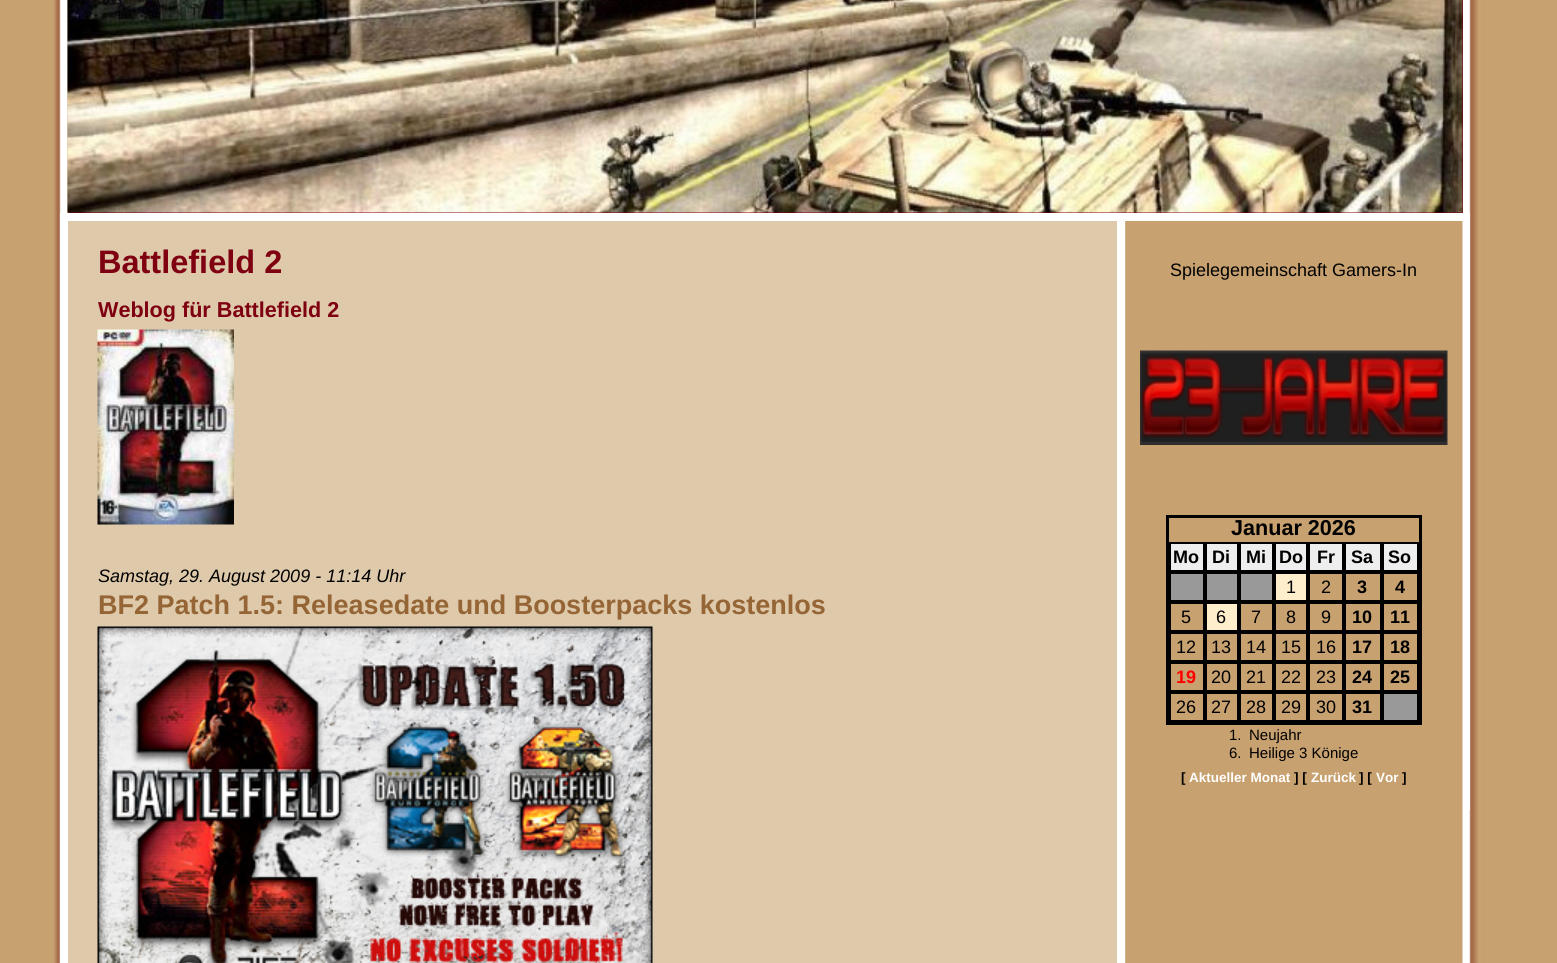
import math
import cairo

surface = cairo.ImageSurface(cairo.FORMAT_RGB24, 1557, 963)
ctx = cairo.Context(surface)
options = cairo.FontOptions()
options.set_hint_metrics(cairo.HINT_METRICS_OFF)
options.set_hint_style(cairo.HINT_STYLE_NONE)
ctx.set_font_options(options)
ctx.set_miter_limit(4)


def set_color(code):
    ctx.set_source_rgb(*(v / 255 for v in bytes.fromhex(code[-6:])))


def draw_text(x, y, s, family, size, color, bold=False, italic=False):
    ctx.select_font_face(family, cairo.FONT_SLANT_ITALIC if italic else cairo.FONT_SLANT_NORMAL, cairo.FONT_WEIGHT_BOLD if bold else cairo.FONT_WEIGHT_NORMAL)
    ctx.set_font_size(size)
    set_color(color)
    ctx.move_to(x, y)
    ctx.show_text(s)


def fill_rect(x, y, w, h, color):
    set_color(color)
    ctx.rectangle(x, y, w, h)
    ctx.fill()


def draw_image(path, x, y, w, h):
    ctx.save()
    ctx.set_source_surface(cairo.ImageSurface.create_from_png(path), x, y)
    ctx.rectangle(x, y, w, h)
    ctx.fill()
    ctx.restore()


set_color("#ffffff")
ctx.paint()
draw_image("assets/img1.png", 0, 0, 1557, 963)
fill_rect(68, 0, 1395, 213, "#7e0011")
draw_image("assets/img2.png", 67, 0, 1396, 213)
set_color("#dec9aa")
ctx.rectangle(64, 217, 1057, 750)
ctx.fill_preserve()
set_color("#ffffff")
ctx.set_line_width(8)
ctx.stroke()
draw_text(98, 273, "Battlefield 2", "Liberation Sans", 32.5, "#7e0011", bold=True)
draw_text(98, 317, "Weblog für Battlefield 2", "Liberation Sans", 21.6, "#7e0011", bold=True)
draw_image("assets/img3.png", 97, 329, 137, 196)
draw_text(98, 582, "Samstag, 29. August 2009 - 11:14 Uhr", "Liberation Sans", 18, "#000000", italic=True)
draw_text(98, 614, "BF2 Patch 1.5: Releasedate und Boosterpacks kostenlos", "Liberation Sans", 27, "#956535", bold=True)
draw_image("assets/img4.png", 97, 626, 556, 337)
fill_rect(1125, 213, 345, 8, "#ffffff")
fill_rect(1469, 213, 1, 597, "#ffffff")
draw_text(1170, 276, "Spielegemeinschaft Gamers-In", "Liberation Sans", 18, "#000000")
draw_image("assets/img5.png", 1140, 350, 308, 95)
ctx.rectangle(1167.5, 516.5, 253, 207)
ctx.set_line_width(3)
ctx.stroke()
draw_text(1231, 535, "Januar 2026", "Liberation Sans", 21.6, "#000000", bold=True)
fill_rect(1171, 544, 246, 26, "#eeeeee")
ctx.rectangle(1170, 543, 34, 28)
set_color("#000000")
ctx.set_line_width(2)
ctx.stroke()
draw_text(1173, 563, "Mo", "Liberation Sans", 18, "#000000", bold=True)
ctx.rectangle(1206, 543, 32, 28)
ctx.stroke()
draw_text(1212, 563, "Di", "Liberation Sans", 18, "#000000", bold=True)
ctx.rectangle(1240, 543, 33, 28)
ctx.stroke()
draw_text(1246, 563, "Mi", "Liberation Sans", 18, "#000000", bold=True)
ctx.rectangle(1275, 543, 32, 28)
ctx.stroke()
draw_text(1279, 563, "Do", "Liberation Sans", 18, "#000000", bold=True)
ctx.rectangle(1309, 543, 34, 28)
ctx.stroke()
draw_text(1317, 563, "Fr", "Liberation Sans", 18, "#000000", bold=True)
ctx.rectangle(1345, 543, 36, 28)
ctx.stroke()
draw_text(1351, 563, "Sa", "Liberation Sans", 18, "#000000", bold=True)
ctx.rectangle(1383, 543, 35, 28)
ctx.stroke()
draw_text(1388, 563, "So", "Liberation Sans", 18, "#000000", bold=True)
set_color("#999999")
ctx.rectangle(1170, 573, 34, 28)
ctx.fill_preserve()
set_color("#000000")
ctx.stroke()
set_color("#999999")
ctx.rectangle(1206, 573, 32, 28)
ctx.fill_preserve()
set_color("#000000")
ctx.stroke()
set_color("#999999")
ctx.rectangle(1240, 573, 33, 28)
ctx.fill_preserve()
set_color("#000000")
ctx.stroke()
set_color("#ffeecc")
ctx.rectangle(1275, 573, 32, 28)
ctx.fill_preserve()
set_color("#000000")
ctx.stroke()
draw_text(1286, 593, "1", "Liberation Sans", 18, "#000000")
ctx.rectangle(1309, 573, 34, 28)
ctx.stroke()
draw_text(1321, 593, "2", "Liberation Sans", 18, "#000000")
ctx.rectangle(1345, 573, 36, 28)
ctx.stroke()
draw_text(1357, 593, "3", "Liberation Sans", 18, "#000000", bold=True)
ctx.rectangle(1383, 573, 35, 28)
ctx.stroke()
draw_text(1395, 593, "4", "Liberation Sans", 18, "#000000", bold=True)
ctx.rectangle(1170, 603, 34, 28)
ctx.stroke()
draw_text(1181, 623, "5", "Liberation Sans", 18, "#000000")
set_color("#ffeecc")
ctx.rectangle(1206, 603, 32, 28)
ctx.fill_preserve()
set_color("#000000")
ctx.stroke()
draw_text(1216, 623, "6", "Liberation Sans", 18, "#000000")
ctx.rectangle(1240, 603, 33, 28)
ctx.stroke()
draw_text(1251, 623, "7", "Liberation Sans", 18, "#000000")
ctx.rectangle(1275, 603, 32, 28)
ctx.stroke()
draw_text(1286, 623, "8", "Liberation Sans", 18, "#000000")
ctx.rectangle(1309, 603, 34, 28)
ctx.stroke()
draw_text(1321, 623, "9", "Liberation Sans", 18, "#000000")
ctx.rectangle(1345, 603, 36, 28)
ctx.stroke()
draw_text(1352, 623, "10", "Liberation Sans", 18, "#000000", bold=True)
ctx.rectangle(1383, 603, 35, 28)
ctx.stroke()
draw_text(1390, 623, "11", "Liberation Sans", 18, "#000000", bold=True)
ctx.rectangle(1170, 633, 34, 28)
ctx.stroke()
draw_text(1176, 653, "12", "Liberation Sans", 18, "#000000")
ctx.rectangle(1206, 633, 32, 28)
ctx.stroke()
draw_text(1211, 653, "13", "Liberation Sans", 18, "#000000")
ctx.rectangle(1240, 633, 33, 28)
ctx.stroke()
draw_text(1246, 653, "14", "Liberation Sans", 18, "#000000")
ctx.rectangle(1275, 633, 32, 28)
ctx.stroke()
draw_text(1281, 653, "15", "Liberation Sans", 18, "#000000")
ctx.rectangle(1309, 633, 34, 28)
ctx.stroke()
draw_text(1316, 653, "16", "Liberation Sans", 18, "#000000")
ctx.rectangle(1345, 633, 36, 28)
ctx.stroke()
draw_text(1352, 653, "17", "Liberation Sans", 18, "#000000", bold=True)
ctx.rectangle(1383, 633, 35, 28)
ctx.stroke()
draw_text(1390, 653, "18", "Liberation Sans", 18, "#000000", bold=True)
ctx.rectangle(1170, 663, 34, 28)
ctx.stroke()
draw_text(1176, 683, "19", "Liberation Sans", 18, "#ff0000", bold=True)
ctx.rectangle(1206, 663, 32, 28)
set_color("#000000")
ctx.stroke()
draw_text(1211, 683, "20", "Liberation Sans", 18, "#000000")
ctx.rectangle(1240, 663, 33, 28)
ctx.stroke()
draw_text(1246, 683, "21", "Liberation Sans", 18, "#000000")
ctx.rectangle(1275, 663, 32, 28)
ctx.stroke()
draw_text(1281, 683, "22", "Liberation Sans", 18, "#000000")
ctx.rectangle(1309, 663, 34, 28)
ctx.stroke()
draw_text(1316, 683, "23", "Liberation Sans", 18, "#000000")
ctx.rectangle(1345, 663, 36, 28)
ctx.stroke()
draw_text(1352, 683, "24", "Liberation Sans", 18, "#000000", bold=True)
ctx.rectangle(1383, 663, 35, 28)
ctx.stroke()
draw_text(1390, 683, "25", "Liberation Sans", 18, "#000000", bold=True)
ctx.rectangle(1170, 693, 34, 28)
ctx.stroke()
draw_text(1176, 713, "26", "Liberation Sans", 18, "#000000")
ctx.rectangle(1206, 693, 32, 28)
ctx.stroke()
draw_text(1211, 713, "27", "Liberation Sans", 18, "#000000")
ctx.rectangle(1240, 693, 33, 28)
ctx.stroke()
draw_text(1246, 713, "28", "Liberation Sans", 18, "#000000")
ctx.rectangle(1275, 693, 32, 28)
ctx.stroke()
draw_text(1281, 713, "29", "Liberation Sans", 18, "#000000")
ctx.rectangle(1309, 693, 34, 28)
ctx.stroke()
draw_text(1316, 713, "30", "Liberation Sans", 18, "#000000")
ctx.rectangle(1345, 693, 36, 28)
ctx.stroke()
draw_text(1352, 713, "31", "Liberation Sans", 18, "#000000", bold=True)
set_color("#999999")
ctx.rectangle(1383, 693, 35, 28)
ctx.fill_preserve()
set_color("#000000")
ctx.stroke()
draw_text(1229, 740, "1.", "Liberation Sans", 15, "#000000")
draw_text(1249, 740, "Neujahr", "Liberation Sans", 15, "#000000")
draw_text(1229, 758, "6.", "Liberation Sans", 15, "#000000")
draw_text(1249, 758, "Heilige 3 Könige", "Liberation Sans", 15, "#000000")
draw_text(1181, 782, "[", "Liberation Sans", 13.5, "#000000", bold=True)
draw_text(1189, 782, "Aktueller Monat", "Liberation Sans", 13.5, "#ffffff", bold=True)
draw_text(1294, 782, "] [", "Liberation Sans", 13.5, "#000000", bold=True)
draw_text(1311, 782, "Zurück", "Liberation Sans", 13.5, "#ffffff", bold=True)
draw_text(1359, 782, "] [", "Liberation Sans", 13.5, "#000000", bold=True)
draw_text(1376, 782, "Vor", "Liberation Sans", 13.5, "#ffffff", bold=True)
draw_text(1402, 782, "]", "Liberation Sans", 13.5, "#000000", bold=True)
surface.write_to_png("output.png")
